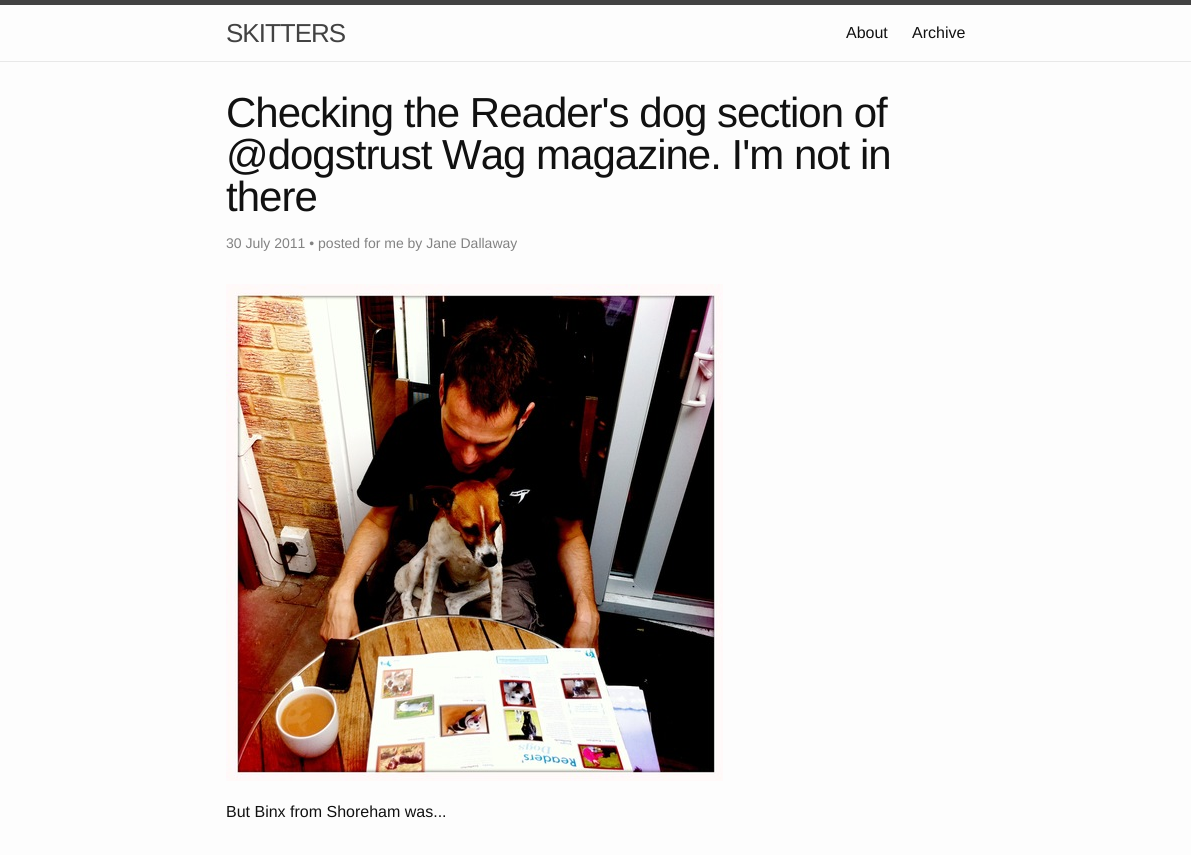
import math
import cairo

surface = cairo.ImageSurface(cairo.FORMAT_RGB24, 1191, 855)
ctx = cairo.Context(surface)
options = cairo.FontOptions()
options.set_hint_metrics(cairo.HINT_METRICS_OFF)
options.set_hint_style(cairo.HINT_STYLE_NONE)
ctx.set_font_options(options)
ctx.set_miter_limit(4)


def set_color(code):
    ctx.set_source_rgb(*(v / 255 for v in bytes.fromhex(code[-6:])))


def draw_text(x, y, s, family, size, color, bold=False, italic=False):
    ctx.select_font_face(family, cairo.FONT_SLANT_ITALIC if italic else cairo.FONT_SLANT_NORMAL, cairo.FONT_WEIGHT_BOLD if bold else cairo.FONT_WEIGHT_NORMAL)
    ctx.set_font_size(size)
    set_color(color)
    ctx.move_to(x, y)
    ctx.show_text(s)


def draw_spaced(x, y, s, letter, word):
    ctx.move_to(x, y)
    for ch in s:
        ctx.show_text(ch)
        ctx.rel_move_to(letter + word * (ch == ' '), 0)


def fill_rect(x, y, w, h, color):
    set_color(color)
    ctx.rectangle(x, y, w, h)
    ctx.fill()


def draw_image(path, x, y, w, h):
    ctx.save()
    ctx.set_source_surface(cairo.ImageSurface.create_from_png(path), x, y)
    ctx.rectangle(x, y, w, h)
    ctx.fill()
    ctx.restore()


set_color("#fdfdfd")
ctx.paint()
fill_rect(0, 0, 1191, 5, "#424242")
fill_rect(0, 61, 1191, 1, "#e8e8e8")
ctx.select_font_face("Liberation Sans")
ctx.set_font_size(26)
set_color("#424242")
draw_spaced(226, 42, "SKITTERS", -1, 0)
draw_text(846, 38, "About", "Liberation Sans", 16, "#111111")
draw_text(912, 38, "Archive", "Liberation Sans", 16, "#111111")
ctx.set_font_size(42)
draw_spaced(226, 127, "Checking the Reader's dog section of", -1, 0)
draw_spaced(226, 169, "@dogstrust Wag magazine. I'm not in", -1, 0)
draw_spaced(226, 211, "there", -1, 0)
draw_text(226, 248, "30 July 2011 • posted for me by Jane Dallaway", "Liberation Sans", 14, "#828282")
draw_image("assets/img1.png", 226, 284, 497, 497)
draw_text(226, 817, "But Binx from Shoreham was...", "Liberation Sans", 16, "#111111")
surface.write_to_png("output.png")
